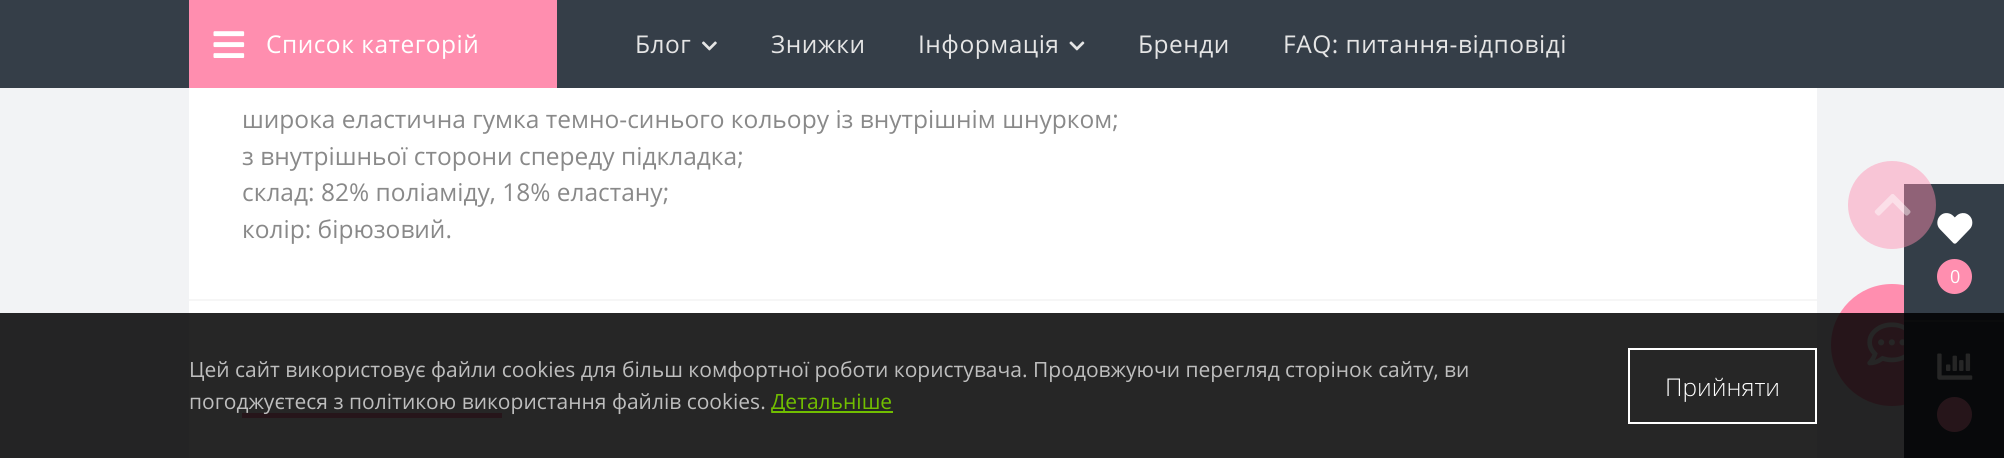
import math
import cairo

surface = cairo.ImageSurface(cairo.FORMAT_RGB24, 2004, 458)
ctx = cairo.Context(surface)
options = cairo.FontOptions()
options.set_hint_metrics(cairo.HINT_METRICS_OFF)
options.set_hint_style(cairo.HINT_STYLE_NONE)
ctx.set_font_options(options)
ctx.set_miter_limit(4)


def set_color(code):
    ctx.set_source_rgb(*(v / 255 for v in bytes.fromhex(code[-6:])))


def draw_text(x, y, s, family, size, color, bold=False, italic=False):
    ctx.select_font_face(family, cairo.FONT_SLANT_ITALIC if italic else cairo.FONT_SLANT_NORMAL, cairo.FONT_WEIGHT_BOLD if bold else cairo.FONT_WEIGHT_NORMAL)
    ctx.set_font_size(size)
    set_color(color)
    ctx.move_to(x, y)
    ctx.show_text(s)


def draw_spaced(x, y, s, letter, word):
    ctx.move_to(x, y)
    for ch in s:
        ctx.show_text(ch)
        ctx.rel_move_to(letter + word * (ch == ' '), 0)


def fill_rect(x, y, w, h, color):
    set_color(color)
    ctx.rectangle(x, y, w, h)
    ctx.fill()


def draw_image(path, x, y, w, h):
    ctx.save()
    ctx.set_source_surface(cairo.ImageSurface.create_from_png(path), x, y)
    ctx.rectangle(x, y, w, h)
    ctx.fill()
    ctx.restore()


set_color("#f2f3f5")
ctx.paint()
fill_rect(0, 0, 2004, 88, "#353e48")
fill_rect(189, 0, 368, 88, "#ff8eaf")
draw_image("assets/img1.png", 213, 31, 32, 27)
ctx.select_font_face("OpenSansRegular")
ctx.set_font_size(24.5)
set_color("#ffffff")
draw_spaced(266, 53, "Список категорій", 0.5, 0)
set_color("#e5e5e5")
draw_spaced(635, 53, "Блог", 0.5, 0)
draw_image("assets/img2.png", 702, 41, 15, 10)
draw_spaced(771, 53, "Знижки", 0.5, 0)
draw_spaced(918, 53, "Інформація", 0.5, 0)
draw_image("assets/img3.png", 1069, 41, 16, 10)
draw_spaced(1138, 53, "Бренди", 0.5, 0)
draw_spaced(1283, 53, "FAQ: питання-відповіді", 0.5, 0)
fill_rect(189, 88, 1628, 370, "#ffffff")
draw_text(242, 128, "широка еластична гумка темно-синього кольору із внутрішнім шнурком;", "OpenSansRegular", 24.5, "#898989")
draw_text(242, 165, "з внутрішньої сторони спереду підкладка;", "OpenSansRegular", 24.5, "#898989")
draw_text(242, 201, "склад: 82% поліаміду, 18% еластану;", "OpenSansRegular", 24.5, "#898989")
draw_text(242, 238, "колір: бірюзовий.", "OpenSansRegular", 24.5, "#898989")
fill_rect(189, 299, 1628, 2, "#f6f6f6")
fill_rect(242, 413, 260, 5, "#ff8eaf")
ctx.new_path()
ctx.arc(1892, 345, 61, 0, 2 * math.pi)
ctx.fill()
fill_rect(1904, 184, 100, 274, "#343e48")
ctx.set_source_rgba(1, 0.557, 0.686, 0.45)
ctx.arc(1892, 205, 44, 0, 2 * math.pi)
ctx.fill()
draw_image("assets/img4.png", 1874, 194, 37, 22)
draw_image("assets/img5.png", 1867, 322, 37, 44)
draw_image("assets/img6.png", 1937, 213, 36, 31)
set_color("#ff8eaf")
ctx.arc(1954.5, 276.5, 17.5, 0, 2 * math.pi)
ctx.fill()
draw_text(1950, 283, "0", "OpenSansRegular", 18, "#ffffff")
fill_rect(1904, 320, 100, 2, "#48515a")
draw_image("assets/img7.png", 1937, 353, 36, 27)
set_color("#ff8eaf")
ctx.arc(1954.5, 414.5, 17.5, 0, 2 * math.pi)
ctx.fill()
ctx.set_source_rgba(0, 0, 0, 0.85)
ctx.rectangle(0, 313, 2004, 145)
ctx.fill()
draw_text(189, 377, "Цей сайт використовує файли cookies для більш комфортної роботи користувача. Продовжуючи перегляд сторінок сайту, ви", "OpenSansRegular", 21, "#bebebe")
draw_text(189, 409, "погоджуєтеся з політикою використання файлів cookies.", "OpenSansRegular", 21, "#bebebe")
fill_rect(772, 411, 121, 2, "#71be00")
draw_text(771, 409, "Детальніше", "OpenSansRegular", 21, "#71be00")
ctx.rectangle(1629, 349, 187, 74)
set_color("#ffffff")
ctx.stroke()
draw_text(1665, 396, "Прийняти", "Open Sans Light", 24.5, "#ffffff")
surface.write_to_png("output.png")
